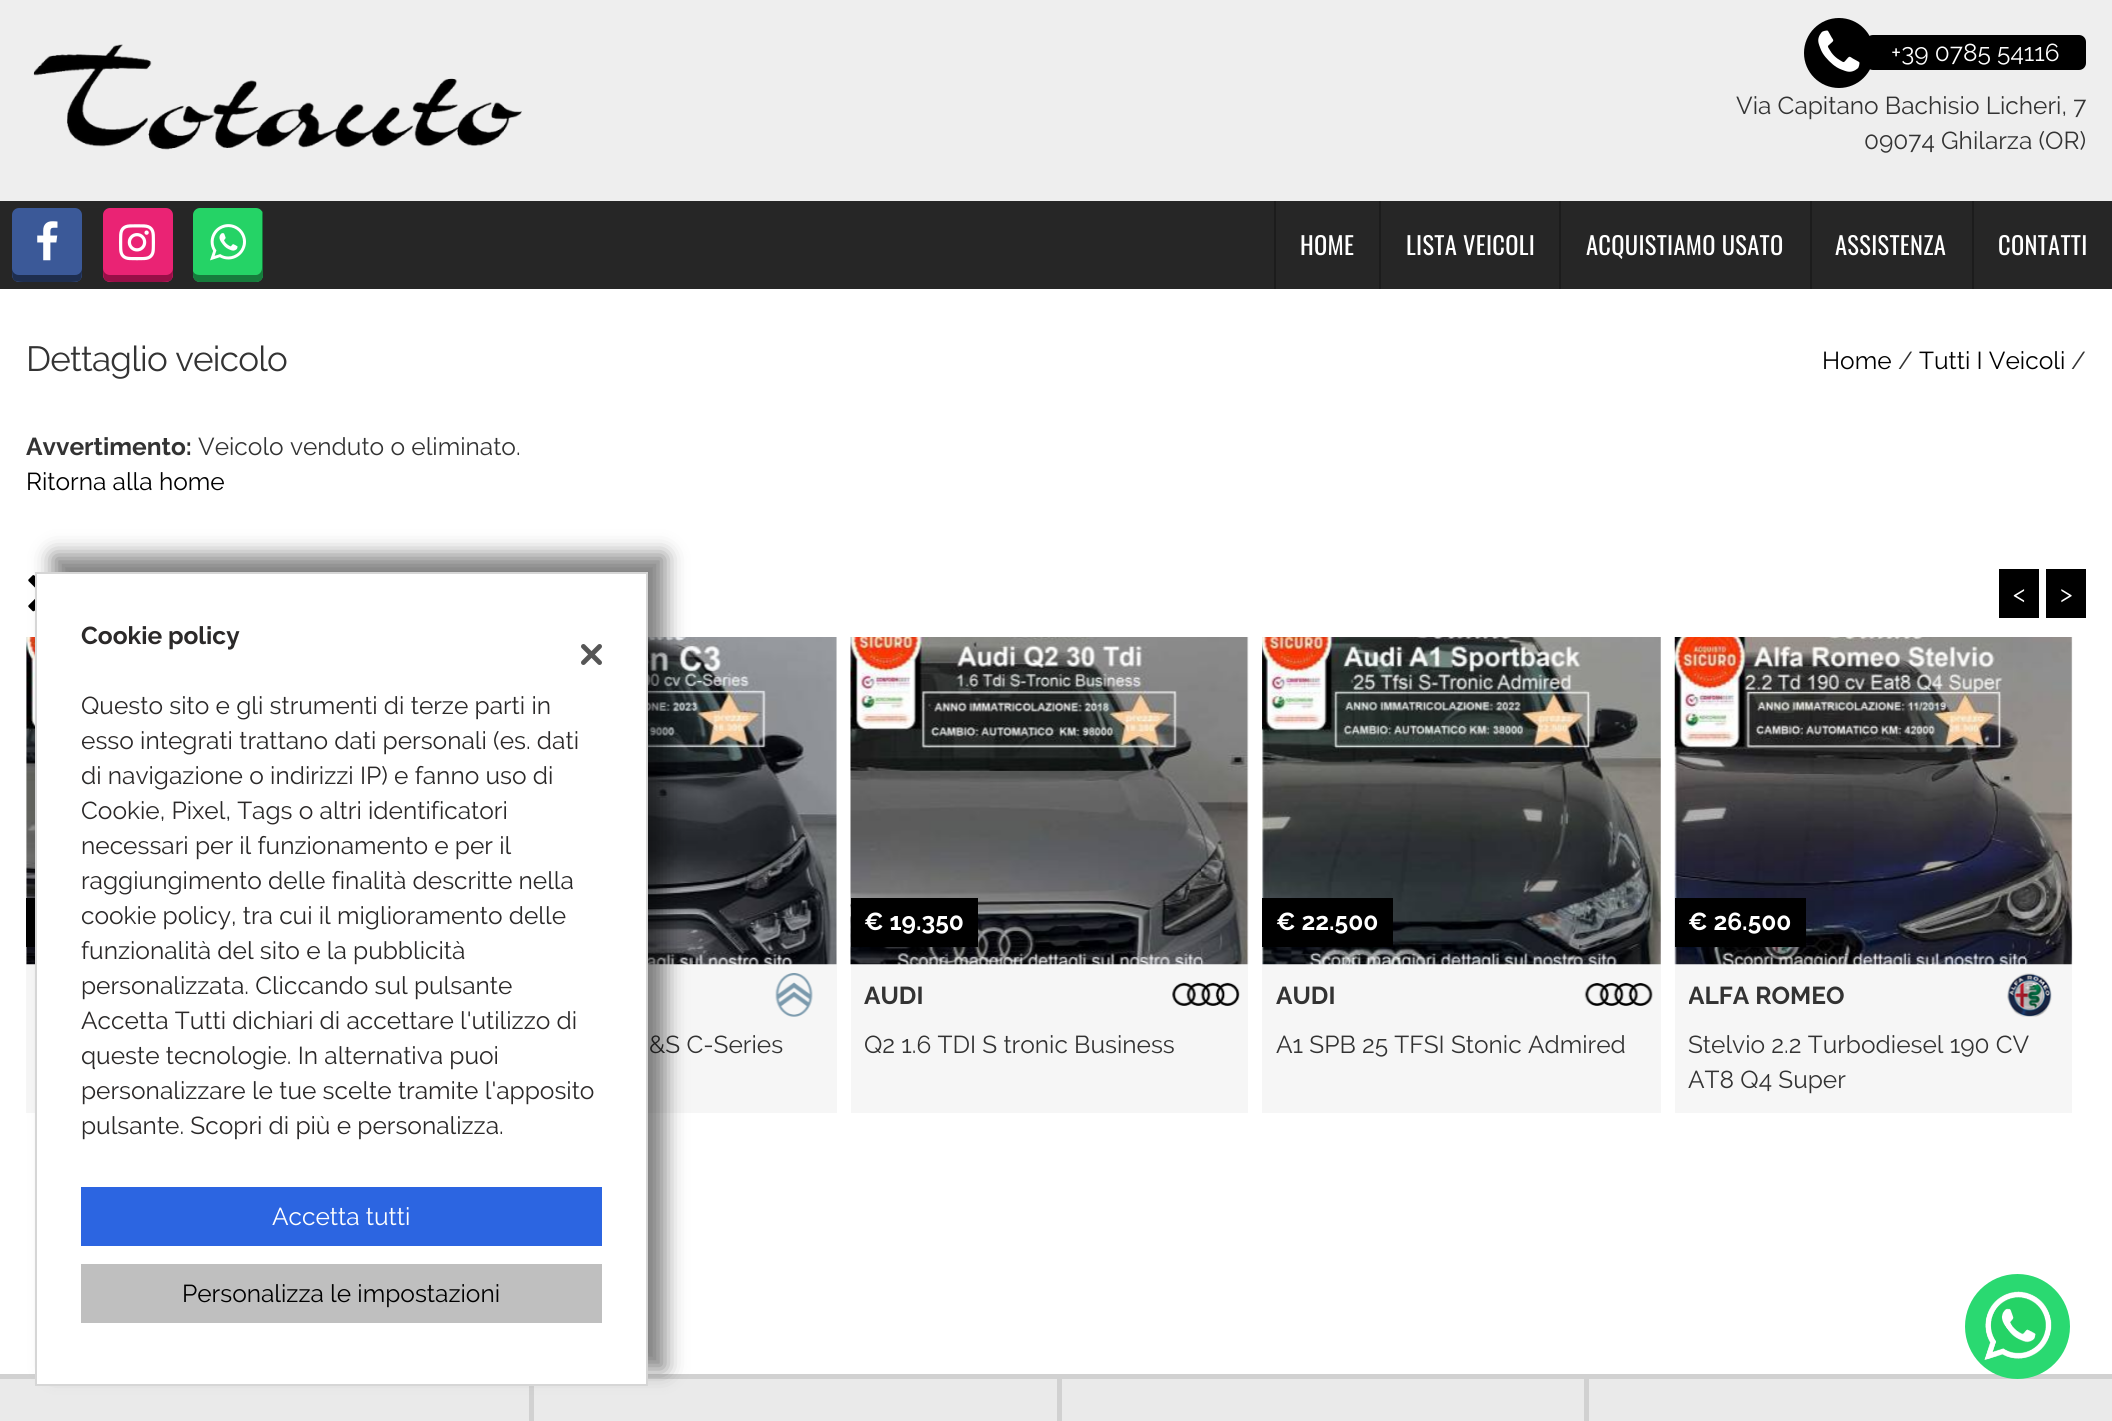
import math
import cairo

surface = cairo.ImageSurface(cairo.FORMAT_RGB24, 2112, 1421)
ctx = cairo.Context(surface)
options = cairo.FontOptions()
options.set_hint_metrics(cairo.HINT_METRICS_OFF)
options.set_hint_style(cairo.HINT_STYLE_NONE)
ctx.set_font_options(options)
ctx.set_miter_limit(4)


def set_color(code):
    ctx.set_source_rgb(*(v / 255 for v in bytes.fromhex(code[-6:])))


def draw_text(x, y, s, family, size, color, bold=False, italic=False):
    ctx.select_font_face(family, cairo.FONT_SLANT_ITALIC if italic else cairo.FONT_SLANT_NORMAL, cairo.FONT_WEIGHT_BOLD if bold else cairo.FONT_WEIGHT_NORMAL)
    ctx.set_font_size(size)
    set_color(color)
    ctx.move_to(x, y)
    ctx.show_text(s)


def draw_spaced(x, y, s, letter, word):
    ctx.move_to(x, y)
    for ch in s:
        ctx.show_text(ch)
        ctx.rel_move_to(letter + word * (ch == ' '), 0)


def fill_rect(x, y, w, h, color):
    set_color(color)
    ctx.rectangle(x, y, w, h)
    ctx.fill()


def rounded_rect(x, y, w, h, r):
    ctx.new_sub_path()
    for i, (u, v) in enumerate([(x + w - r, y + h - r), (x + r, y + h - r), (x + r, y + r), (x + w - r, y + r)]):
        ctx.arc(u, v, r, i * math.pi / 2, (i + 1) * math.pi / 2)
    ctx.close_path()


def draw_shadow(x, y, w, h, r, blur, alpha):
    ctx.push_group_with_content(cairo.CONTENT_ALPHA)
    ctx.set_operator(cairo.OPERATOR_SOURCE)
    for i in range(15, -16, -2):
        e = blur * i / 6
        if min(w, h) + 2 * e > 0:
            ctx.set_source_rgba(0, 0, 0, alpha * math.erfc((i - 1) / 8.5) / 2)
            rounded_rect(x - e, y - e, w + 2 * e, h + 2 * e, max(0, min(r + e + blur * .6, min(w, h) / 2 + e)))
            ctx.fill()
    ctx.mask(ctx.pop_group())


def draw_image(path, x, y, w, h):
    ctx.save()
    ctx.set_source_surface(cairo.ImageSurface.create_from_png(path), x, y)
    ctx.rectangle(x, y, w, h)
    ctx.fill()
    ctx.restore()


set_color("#ffffff")
ctx.paint()
fill_rect(0, 0, 2112, 201, "#eeeeee")
draw_image("assets/img1.png", 33, 44, 489, 106)
set_color("#000000")
ctx.arc(1839, 53, 35, 0, 2 * math.pi)
ctx.fill()
draw_image("assets/img2.png", 1818, 30, 42, 42)
rounded_rect(1866, 35, 220, 35, 7)
ctx.fill()
draw_text(1891, 61, "+39 0785 54116", "Raleway", 24.5, "#ffffff")
draw_text(1736, 114, "Via Capitano Bachisio Licheri, 7", "Raleway", 24.5, "#333333")
draw_text(1864, 149, "09074 Ghilarza (OR)", "Raleway", 24.5, "#333333")
fill_rect(0, 201, 2112, 88, "#262626")
set_color("#3b5998")
rounded_rect(12, 208, 70, 74, 7)
ctx.fill()
set_color("#1e2e4f")
ctx.new_path()
ctx.move_to(12, 268)
ctx.curve_to(12, 282, 13, 282, 28, 282)
ctx.line_to(66, 282)
ctx.curve_to(81, 282, 82, 282, 82, 268)
ctx.curve_to(82, 272, 79, 275, 75, 275)
ctx.line_to(19, 275)
ctx.curve_to(15, 275, 12, 272, 12, 268)
ctx.close_path()
ctx.fill()
draw_image("assets/img3.png", 37, 221, 21, 40)
set_color("#ea2374")
rounded_rect(103, 208, 70, 74, 7)
ctx.fill()
set_color("#980f47")
ctx.new_path()
ctx.move_to(103, 268)
ctx.curve_to(103, 282, 104, 282, 119, 282)
ctx.line_to(157, 282)
ctx.curve_to(172, 282, 173, 282, 173, 268)
ctx.curve_to(173, 272, 170, 275, 166, 275)
ctx.line_to(110, 275)
ctx.curve_to(106, 275, 103, 272, 103, 268)
ctx.close_path()
ctx.fill()
draw_image("assets/img4.png", 119, 224, 36, 37)
set_color("#25d366")
rounded_rect(193, 208, 70, 74, 7)
ctx.fill()
set_color("#167c3c")
ctx.new_path()
ctx.move_to(193, 271)
ctx.line_to(193, 275)
ctx.curve_to(193, 279, 196, 282, 200, 282)
ctx.line_to(256, 282)
ctx.curve_to(260, 282, 263, 279, 263, 275)
ctx.line_to(263, 215)
ctx.curve_to(263, 214, 263, 212, 262, 211)
ctx.line_to(262, 268)
ctx.curve_to(262, 272, 259, 275, 256, 275)
ctx.line_to(200, 275)
ctx.curve_to(197, 275, 194, 274, 193, 271)
ctx.close_path()
ctx.fill()
draw_image("assets/img5.png", 210, 224, 36, 37)
fill_rect(1274, 201, 2, 88, "#1c1c1c")
ctx.select_font_face("Oswald")
set_color("#ffffff")
draw_spaced(1300, 255, "HOME", 0.3, 0)
fill_rect(1379, 201, 2, 88, "#1c1c1c")
set_color("#ffffff")
draw_spaced(1406, 255, "LISTA VEICOLI", 0.3, 0)
fill_rect(1559, 201, 2, 88, "#1c1c1c")
set_color("#ffffff")
draw_spaced(1586, 255, "ACQUISTIAMO USATO", 0.3, 0)
fill_rect(1810, 201, 2, 88, "#1c1c1c")
set_color("#ffffff")
draw_spaced(1835, 255, "ASSISTENZA", 0.3, 0)
fill_rect(1972, 201, 2, 88, "#1c1c1c")
set_color("#ffffff")
draw_spaced(1998, 255, "CONTATTI", 0.3, 0)
ctx.select_font_face("Raleway")
ctx.set_font_size(35)
set_color("#333333")
draw_spaced(26, 371, "Dettaglio veicolo", -0.75, 0)
draw_text(1822, 369, "Home", "Raleway", 24.5, "#000000")
draw_text(1898, 369, "/", "Raleway", 24.5, "#333333")
draw_text(1919, 369, "Tutti I Veicoli", "Raleway", 24.5, "#000000")
draw_text(2071, 369, "/", "Raleway", 24.5, "#333333")
draw_text(26, 455, "Avvertimento:", "Raleway", 24.5, "#333333", bold=True)
draw_text(198, 455, "Veicolo venduto o eliminato.", "Raleway", 24.5, "#333333")
draw_text(26, 490, "Ritorna alla home", "Raleway", 24.5, "#000000")
draw_image("assets/img6.png", 28, 575, 7, 37)
fill_rect(1999, 569, 40, 49, "#000000")
draw_text(2013, 602, "<", "Raleway", 24.5, "#ffffff")
fill_rect(2046, 569, 40, 49, "#000000")
draw_text(2060, 602, ">", "Raleway", 24.5, "#ffffff")
fill_rect(26, 637, 9, 476, "#f6f6f6")
draw_image("assets/img7.png", 26, 637, 9, 328)
fill_rect(26, 898, 9, 49, "#000000")
fill_rect(648, 637, 189, 476, "#f6f6f6")
draw_image("assets/img8.png", 648, 637, 189, 328)
draw_image("assets/img9.png", 775, 973, 38, 44)
draw_text(649, 1053, "&S C-Series", "Raleway", 24.5, "#333333")
fill_rect(851, 637, 397, 476, "#f6f6f6")
draw_image("assets/img10.png", 850, 637, 399, 328)
fill_rect(851, 898, 127, 49, "#000000")
draw_text(864, 930, "€ 19.350", "Raleway", 24.5, "#ffffff", bold=True)
draw_text(864, 1004, "AUDI", "Raleway", 24.5, "#333333", bold=True)
draw_image("assets/img11.png", 1172, 982, 68, 24)
draw_text(864, 1053, "Q2 1.6 TDI S tronic Business", "Raleway", 24.5, "#333333")
fill_rect(1262, 637, 399, 476, "#f6f6f6")
draw_image("assets/img12.png", 1262, 637, 399, 328)
fill_rect(1262, 898, 131, 49, "#000000")
draw_text(1276, 930, "€ 22.500", "Raleway", 24.5, "#ffffff", bold=True)
draw_text(1276, 1004, "AUDI", "Raleway", 24.5, "#333333", bold=True)
draw_image("assets/img13.png", 1584, 983, 69, 23)
draw_text(1276, 1053, "A1 SPB 25 TFSI Stonic Admired", "Raleway", 24.5, "#333333")
fill_rect(1675, 637, 397, 476, "#f6f6f6")
draw_image("assets/img14.png", 1674, 637, 399, 328)
fill_rect(1675, 898, 131, 49, "#000000")
draw_text(1688, 930, "€ 26.500", "Raleway", 24.5, "#ffffff", bold=True)
ctx.save()
ctx.rectangle(1689, 978, 383, 35)
ctx.clip()
draw_text(1688, 1004, "ALFA ROMEO", "Raleway", 24.5, "#333333", bold=True)
ctx.restore()
draw_image("assets/img15.png", 2007, 973, 45, 44)
draw_text(1688, 1053, "Stelvio 2.2 Turbodiesel 190 CV", "Raleway", 24.5, "#333333")
draw_text(1688, 1088, "AT8 Q4 Super", "Raleway", 24.5, "#333333")
fill_rect(0, 1379, 2112, 42, "#eaeaea")
fill_rect(0, 1374, 2112, 5, "#d1d1d1")
fill_rect(529, 1379, 5, 42, "#d1d1d1")
set_color("#000000")
draw_shadow(53, 555, 612, 814, 0, 10.5, 0.5)
set_color("#ffffff")
ctx.rectangle(36, 573, 611, 812)
ctx.fill_preserve()
set_color("#d6d6d6")
ctx.stroke()
draw_text(81, 644, "Cookie policy", "Raleway", 24.5, "#2b2929", bold=True)
draw_text(81, 714, "Questo sito e gli strumenti di terze parti in", "Raleway", 24.5, "#2b2929")
draw_text(81, 749, "esso integrati trattano dati personali (es. dati", "Raleway", 24.5, "#2b2929")
draw_text(81, 784, "di navigazione o indirizzi IP) e fanno uso di", "Raleway", 24.5, "#2b2929")
draw_text(81, 819, "Cookie, Pixel, Tags o altri identificatori", "Raleway", 24.5, "#2b2929")
draw_text(81, 854, "necessari per il funzionamento e per il", "Raleway", 24.5, "#2b2929")
draw_text(81, 889, "raggiungimento delle finalità descritte nella", "Raleway", 24.5, "#2b2929")
draw_text(81, 924, "cookie policy, tra cui il miglioramento delle", "Raleway", 24.5, "#2b2929")
draw_text(81, 959, "funzionalità del sito e la pubblicità", "Raleway", 24.5, "#2b2929")
draw_text(81, 994, "personalizzata. Cliccando sul pulsante", "Raleway", 24.5, "#2b2929")
draw_text(81, 1029, "Accetta Tutti dichiari di accettare l'utilizzo di", "Raleway", 24.5, "#2b2929")
draw_text(81, 1064, "queste tecnologie. In alternativa puoi", "Raleway", 24.5, "#2b2929")
draw_text(81, 1099, "personalizzare le tue scelte tramite l'apposito", "Raleway", 24.5, "#2b2929")
draw_text(81, 1134, "pulsante. Scopri di più e personalizza.", "Raleway", 24.5, "#2b2929")
draw_image("assets/img16.png", 581, 644, 21, 21)
fill_rect(81, 1187, 521, 59, "#2c65e1")
draw_text(272, 1225, "Accetta tutti", "Raleway", 24.5, "#ffffff")
fill_rect(81, 1264, 521, 59, "#bfbfbf")
draw_text(182, 1302, "Personalizza le impostazioni", "Raleway", 24.5, "#000000")
set_color("#2ad971")
ctx.new_path()
ctx.arc(2017.5, 1326.5, 52.5, 0, 2 * math.pi)
ctx.fill()
draw_image("assets/img17.png", 1984, 1291, 68, 69)
fill_rect(1057, 1379, 5, 42, "#d1d1d1")
fill_rect(1584, 1379, 5, 42, "#d1d1d1")
surface.write_to_png("output.png")
